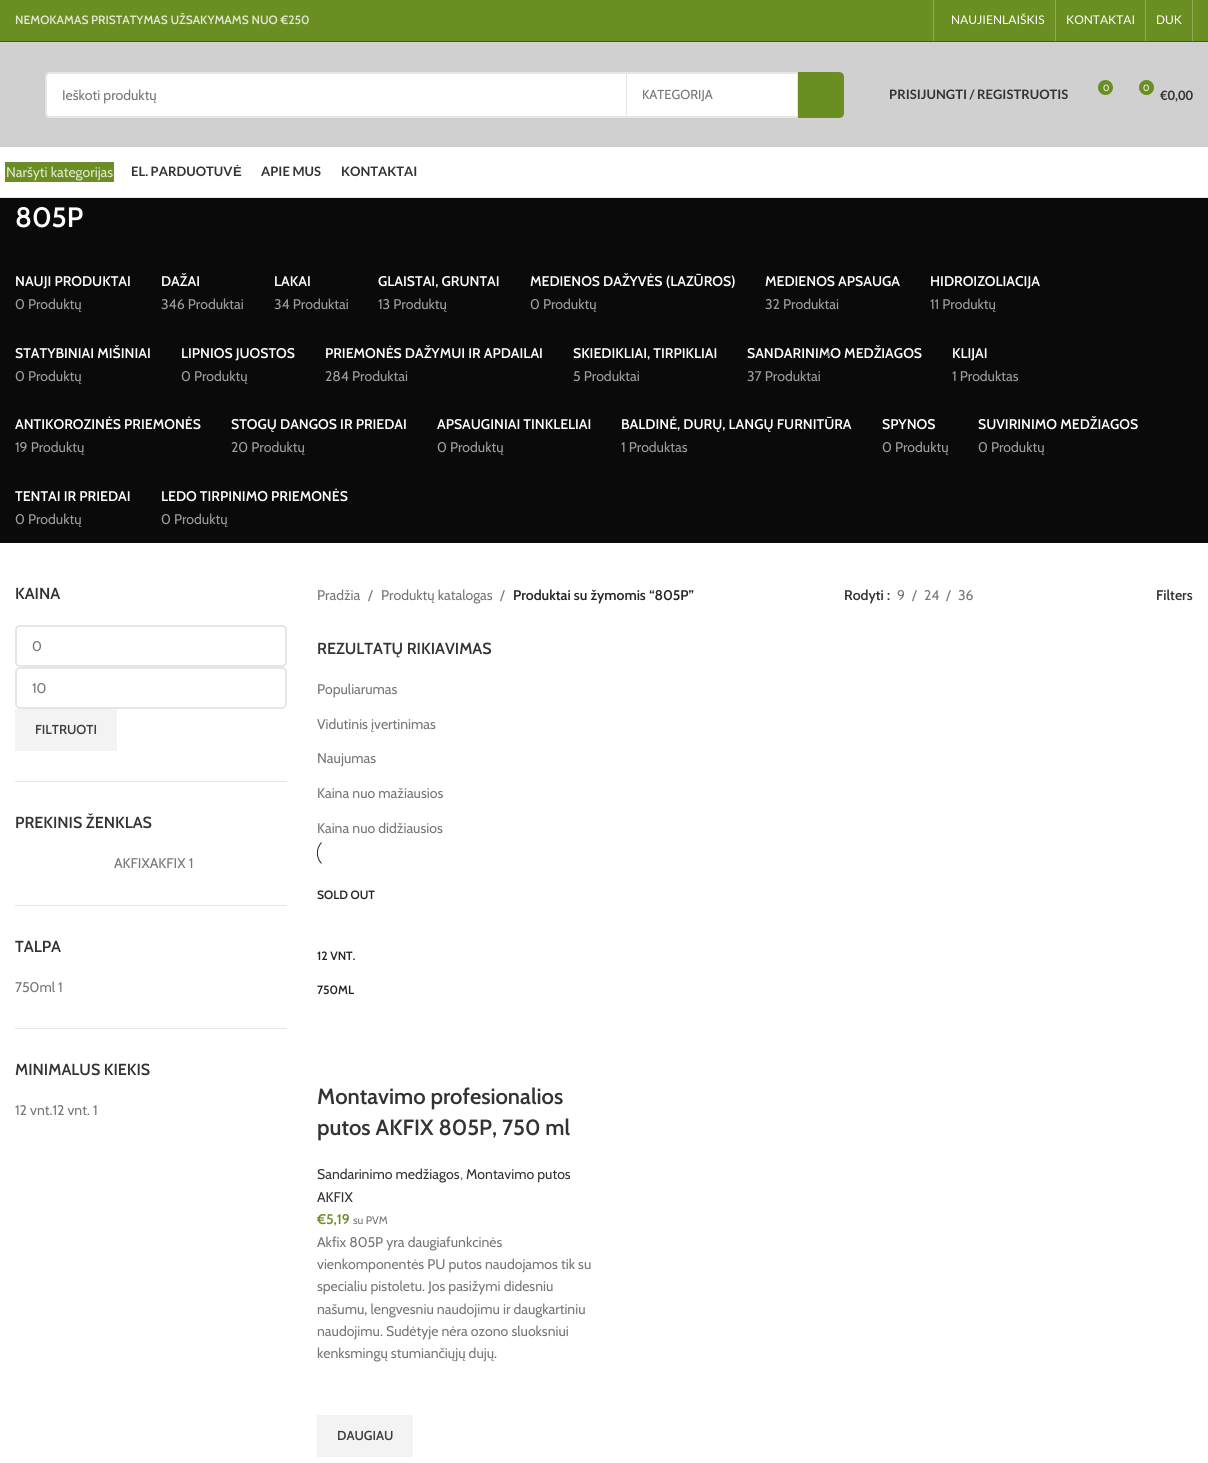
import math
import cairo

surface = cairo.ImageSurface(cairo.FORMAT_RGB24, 1208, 1463)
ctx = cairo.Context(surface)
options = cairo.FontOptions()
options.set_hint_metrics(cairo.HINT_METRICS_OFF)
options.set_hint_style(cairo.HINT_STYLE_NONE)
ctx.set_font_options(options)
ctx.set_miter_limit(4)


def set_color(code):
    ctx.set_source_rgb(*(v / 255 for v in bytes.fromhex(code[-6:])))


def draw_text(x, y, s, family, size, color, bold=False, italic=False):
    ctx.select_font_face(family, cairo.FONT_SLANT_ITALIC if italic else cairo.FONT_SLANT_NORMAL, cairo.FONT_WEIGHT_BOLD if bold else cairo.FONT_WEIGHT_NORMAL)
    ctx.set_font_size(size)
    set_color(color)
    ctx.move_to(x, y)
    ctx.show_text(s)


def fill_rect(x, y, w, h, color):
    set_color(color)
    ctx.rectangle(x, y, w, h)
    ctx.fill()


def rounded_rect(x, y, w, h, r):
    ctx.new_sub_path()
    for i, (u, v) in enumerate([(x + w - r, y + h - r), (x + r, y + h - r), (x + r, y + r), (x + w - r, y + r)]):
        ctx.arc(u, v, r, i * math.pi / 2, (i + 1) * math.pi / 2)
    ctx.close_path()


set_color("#ffffff")
ctx.paint()
fill_rect(0, 0, 1208, 41, "#6b8e23")
fill_rect(0, 41, 1208, 1, "#3a4d69")
draw_text(15, 24, "NEMOKAMAS PRISTATYMAS UŽSAKYMAMS NUO €250", "Cabin SemiBold", 12, "#e1e8d3")
fill_rect(933, 0, 1, 41, "#90aa5a")
draw_text(951, 24, "NAUJIENLAIŠKIS", "Lato", 12, "#ffffff")
fill_rect(1055, 0, 1, 41, "#90aa5a")
draw_text(1066, 24, "KONTAKTAI", "Lato", 12, "#ffffff")
fill_rect(1145, 0, 1, 41, "#90aa5a")
draw_text(1156, 24, "DUK", "Lato", 12, "#ffffff")
fill_rect(1192, 0, 1, 41, "#90aa5a")
fill_rect(0, 42, 1208, 105, "#d0d0d0")
set_color("#ffffff")
rounded_rect(45, 72, 799, 46, 5)
ctx.fill()
rounded_rect(46, 73, 797, 44, 4)
ctx.set_source_rgba(0, 0, 0, 0.1)
ctx.stroke()
draw_text(62, 100, "Ieškoti produktų", "Cabin", 14, "#767676")
fill_rect(797, 74, 1, 42, "#e6e6e6")
fill_rect(626, 74, 1, 42, "#e6e6e6")
draw_text(642, 99, "KATEGORIJA", "Cabin", 13, "#767676")
set_color("#6b8e23")
ctx.new_path()
ctx.move_to(798, 72)
ctx.line_to(839, 72)
ctx.curve_to(842, 72, 844, 74, 844, 77)
ctx.line_to(844, 113)
ctx.curve_to(844, 116, 842, 118, 839, 118)
ctx.line_to(798, 118)
ctx.close_path()
ctx.fill()
draw_text(889, 99, "PRISIJUNGTI / REGISTRUOTIS", "Lato", 13, "#333333", bold=True)
fill_rect(0, 198, 1208, 345, "#0a0a0a")
draw_text(747, 358, "SANDARINIMO MEDŽIAGOS", "Cabin SemiBold", 14, "#ffffff")
draw_text(825, 363, "*", "Cabin", 16, "#767676")
set_color("#6b8e23")
ctx.new_path()
ctx.arc(1105.5, 87.5, 7.5, 0, 2 * math.pi)
ctx.fill()
draw_text(1103, 91, "0", "Cabin", 9, "#ffffff")
set_color("#6b8e23")
ctx.new_path()
ctx.arc(1146.5, 87.5, 7.5, 0, 2 * math.pi)
ctx.fill()
draw_text(1143, 91, "0", "Cabin", 9, "#ffffff")
draw_text(1160, 100, "€0,00", "Lato", 13, "#333333", bold=True)
fill_rect(0, 197, 1208, 1, "#e6e6e6")
fill_rect(5, 162, 109, 20, "#6b8e23")
draw_text(6, 177, "Naršyti kategorijas", "Cabin", 14, "#e1e8d3")
set_color("#6f8b36")
ctx.new_path()
ctx.move_to(5, 162)
ctx.line_to(6, 162)
ctx.line_to(6, 163)
ctx.close_path()
ctx.move_to(6, 182)
ctx.line_to(5, 182)
ctx.line_to(6, 181)
ctx.close_path()
ctx.fill()
ctx.set_source_rgba(0.506, 0.506, 0.506, 0.2)
ctx.new_path()
ctx.move_to(5, 182)
ctx.line_to(5, 162)
ctx.line_to(6, 163)
ctx.line_to(6, 181)
ctx.close_path()
ctx.fill()
set_color("#6f8b36")
ctx.new_path()
ctx.move_to(6, 162)
ctx.line_to(114, 162)
ctx.line_to(113, 163)
ctx.line_to(6, 163)
ctx.close_path()
ctx.fill()
ctx.set_source_rgba(0.506, 0.506, 0.506, 0.2)
ctx.new_path()
ctx.move_to(114, 162)
ctx.line_to(114, 182)
ctx.line_to(113, 181)
ctx.line_to(113, 163)
ctx.close_path()
ctx.fill()
ctx.new_path()
ctx.move_to(114, 182)
ctx.line_to(6, 182)
ctx.line_to(6, 181)
ctx.line_to(113, 181)
ctx.close_path()
ctx.fill()
draw_text(131, 176, "EL. PARDUOTUV", "Lato", 13, "#333333", bold=True)
draw_text(233, 176, "Ė", "Liberation Sans", 13, "#333333", bold=True)
draw_text(261, 176, "APIE MUS", "Lato", 13, "#333333", bold=True)
draw_text(341, 176, "KONTAKTAI", "Lato", 13, "#333333", bold=True)
draw_text(15, 227, "805P", "Cabin SemiBold", 28, "#ffffff")
draw_text(15, 286, "NAUJI PRODUKTAI", "Cabin SemiBold", 14, "#ffffff")
draw_text(15, 309, "0 Produktų", "Cabin", 14, "#9d9d9d")
draw_text(161, 286, "DAŽAI", "Cabin SemiBold", 14, "#ffffff")
draw_text(161, 309, "346 Produktai", "Cabin", 14, "#9d9d9d")
draw_text(274, 286, "LAKAI", "Cabin SemiBold", 14, "#ffffff")
draw_text(274, 309, "34 Produktai", "Cabin", 14, "#9d9d9d")
draw_text(378, 286, "GLAISTAI, GRUNTAI", "Cabin SemiBold", 14, "#ffffff")
draw_text(378, 309, "13 Produktų", "Cabin", 14, "#9d9d9d")
draw_text(530, 286, "MEDIENOS DAŽYVĖS (LAZŪROS)", "Cabin SemiBold", 14, "#ffffff")
draw_text(530, 309, "0 Produktų", "Cabin", 14, "#9d9d9d")
draw_text(765, 286, "MEDIENOS APSAUGA", "Cabin SemiBold", 14, "#ffffff")
draw_text(765, 309, "32 Produktai", "Cabin", 14, "#9d9d9d")
draw_text(930, 286, "HIDROIZOLIACIJA", "Cabin SemiBold", 14, "#ffffff")
draw_text(930, 309, "11 Produktų", "Cabin", 14, "#9d9d9d")
draw_text(15, 358, "STATYBINIAI MIŠINIAI", "Cabin SemiBold", 14, "#ffffff")
draw_text(15, 381, "0 Produktų", "Cabin", 14, "#9d9d9d")
draw_text(181, 358, "LIPNIOS JUOSTOS", "Cabin SemiBold", 14, "#ffffff")
draw_text(181, 381, "0 Produktų", "Cabin", 14, "#9d9d9d")
draw_text(325, 358, "PRIEMONĖS DAŽYMUI IR APDAILAI", "Cabin SemiBold", 14, "#ffffff")
draw_text(325, 381, "284 Produktai", "Cabin", 14, "#9d9d9d")
draw_text(573, 358, "SKIEDIKLIAI, TIRPIKLIAI", "Cabin SemiBold", 14, "#ffffff")
draw_text(573, 381, "5 Produktai", "Cabin", 14, "#9d9d9d")
draw_text(747, 381, "37 Produktai", "Cabin", 14, "#9d9d9d")
draw_text(952, 358, "KLIJAI", "Cabin SemiBold", 14, "#ffffff")
draw_text(952, 381, "1 Produktas", "Cabin", 14, "#9d9d9d")
draw_text(15, 429, "ANTIKOROZINĖS PRIEMONĖS", "Cabin SemiBold", 14, "#ffffff")
draw_text(15, 452, "19 Produktų", "Cabin", 14, "#9d9d9d")
draw_text(231, 429, "STOGŲ DANGOS IR PRIEDAI", "Cabin SemiBold", 14, "#ffffff")
draw_text(231, 452, "20 Produktų", "Cabin", 14, "#9d9d9d")
draw_text(437, 429, "APSAUGINIAI TINKLELIAI", "Cabin SemiBold", 14, "#ffffff")
draw_text(437, 452, "0 Produktų", "Cabin", 14, "#9d9d9d")
draw_text(621, 429, "BALDINĖ, DURŲ, LANGŲ FURNITŪRA", "Cabin SemiBold", 14, "#ffffff")
draw_text(621, 452, "1 Produktas", "Cabin", 14, "#9d9d9d")
draw_text(882, 429, "SPYNOS", "Cabin SemiBold", 14, "#ffffff")
draw_text(882, 452, "0 Produktų", "Cabin", 14, "#9d9d9d")
draw_text(978, 429, "SUVIRINIMO MEDŽIAGOS", "Cabin SemiBold", 14, "#ffffff")
draw_text(978, 452, "0 Produktų", "Cabin", 14, "#9d9d9d")
draw_text(15, 501, "TENTAI IR PRIEDAI", "Cabin SemiBold", 14, "#ffffff")
draw_text(15, 524, "0 Produktų", "Cabin", 14, "#9d9d9d")
draw_text(161, 501, "LEDO TIRPINIMO PRIEMONĖS", "Cabin SemiBold", 14, "#ffffff")
draw_text(161, 524, "0 Produktų", "Cabin", 14, "#9d9d9d")
fill_rect(15, 781, 272, 1, "#e4e4e4")
draw_text(15, 599, "KAINA", "Cabin SemiBold", 16, "#333333")
rounded_rect(16, 626, 270, 40, 4)
set_color("#e6e6e6")
ctx.stroke()
draw_text(32, 651, "0", "Cabin", 14, "#767676")
rounded_rect(16, 668, 270, 40, 4)
set_color("#e6e6e6")
ctx.stroke()
draw_text(32, 693, "10", "Cabin", 14, "#767676")
fill_rect(15, 709, 102, 42, "#f3f3f3")
draw_text(35, 734, "FILTRUOTI", "Cabin SemiBold", 13, "#3e3e3e")
fill_rect(15, 905, 272, 1, "#e4e4e4")
draw_text(15, 828, "PREKINIS ŽENKLAS", "Cabin SemiBold", 16, "#333333")
draw_text(114, 868, "AKFIXAKFIX 1", "Cabin", 14, "#767676")
fill_rect(15, 1028, 272, 1, "#e4e4e4")
draw_text(15, 952, "TALPA", "Cabin SemiBold", 16, "#333333")
draw_text(15, 992, "750ml 1", "Cabin", 14, "#767676")
draw_text(15, 1075, "MINIMALUS KIEKIS", "Cabin SemiBold", 16, "#333333")
draw_text(15, 1115, "12 vnt.12 vnt. 1", "Cabin", 14, "#767676")
draw_text(317, 600, "Pradžia", "Cabin", 14, "#767676")
draw_text(368, 600, "/", "Cabin", 14, "#767676")
draw_text(381, 600, "Produktų katalogas", "Cabin", 14, "#767676")
draw_text(500, 600, "/", "Cabin", 14, "#767676")
draw_text(513, 600, "Produktai su žymomis “805P”", "Cabin SemiBold", 14, "#242424")
draw_text(844, 600, "Rodyti :", "Cabin SemiBold", 14, "#333333")
draw_text(897, 600, "9", "Cabin", 14, "#767676")
draw_text(912, 600, "/", "Cabin", 14, "#767676")
draw_text(924, 600, "24", "Cabin", 14, "#767676")
draw_text(946, 600, "/", "Cabin", 14, "#767676")
draw_text(958, 600, "36", "Cabin", 14, "#767676")
draw_text(1156, 600, "Filters", "Cabin SemiBold", 14, "#333333")
draw_text(317, 654, "REZULTATŲ RIKIAVIMAS", "Cabin SemiBold", 16, "#333333")
draw_text(317, 694, "Populiarumas", "Cabin", 14, "#767676")
draw_text(317, 729, "Vidutinis įvertinimas", "Cabin", 14, "#767676")
draw_text(317, 763, "Naujumas", "Cabin", 14, "#767676")
draw_text(317, 798, "Kaina nuo mažiausios", "Cabin", 14, "#767676")
draw_text(317, 833, "Kaina nuo didžiausios", "Cabin", 14, "#767676")
ctx.new_path()
ctx.move_to(321.5, 863.5)
ctx.curve_to(316, 857.5, 316, 848.5, 321.5, 842.5)
set_color("#242424")
ctx.set_line_width(1)
ctx.stroke()
draw_text(317, 899, "SOLD OUT", "Cabin SemiBold", 12, "#242424")
draw_text(317, 960, "12 VNT.", "Cabin SemiBold", 12, "#242424")
draw_text(317, 994, "750ML", "Cabin SemiBold", 12, "#242424")
draw_text(317, 1104, "Montavimo profesionalios", "Cabin SemiBold", 22, "#333333")
draw_text(317, 1135, "putos AKFIX 805P, 750 ml", "Cabin SemiBold", 22, "#333333")
draw_text(317, 1179, "Sandarinimo medžiagos", "Cabin", 14, "#333333")
draw_text(460, 1179, ",", "Cabin", 14, "#767676")
draw_text(466, 1179, "Montavimo putos", "Cabin", 14, "#333333")
draw_text(317, 1202, "AKFIX", "Cabin", 14, "#333333")
draw_text(317, 1224, "€5,19", "Cabin SemiBold", 14, "#6b8e23")
draw_text(353, 1224, "su PVM", "Cabin", 11, "#767676")
draw_text(317, 1247, "Akfix 805P yra daugiafunkcinės", "Cabin", 14, "#767676")
draw_text(317, 1269, "vienkomponentės PU putos naudojamos tik su", "Cabin", 14, "#767676")
draw_text(317, 1291, "specialiu pistoletu. Jos pasižymi didesniu", "Cabin", 14, "#767676")
draw_text(317, 1314, "našumu, lengvesniu naudojimu ir daugkartiniu", "Cabin", 14, "#767676")
draw_text(317, 1336, "naudojimu. Sudėtyje nėra ozono sluoksniui", "Cabin", 14, "#767676")
draw_text(317, 1358, "kenksmingų stumiančiųjų dujų.", "Cabin", 14, "#767676")
fill_rect(317, 1415, 96, 42, "#f3f3f3")
draw_text(337, 1440, "DAUGIAU", "Cabin SemiBold", 13, "#3e3e3e")
surface.write_to_png("output.png")
